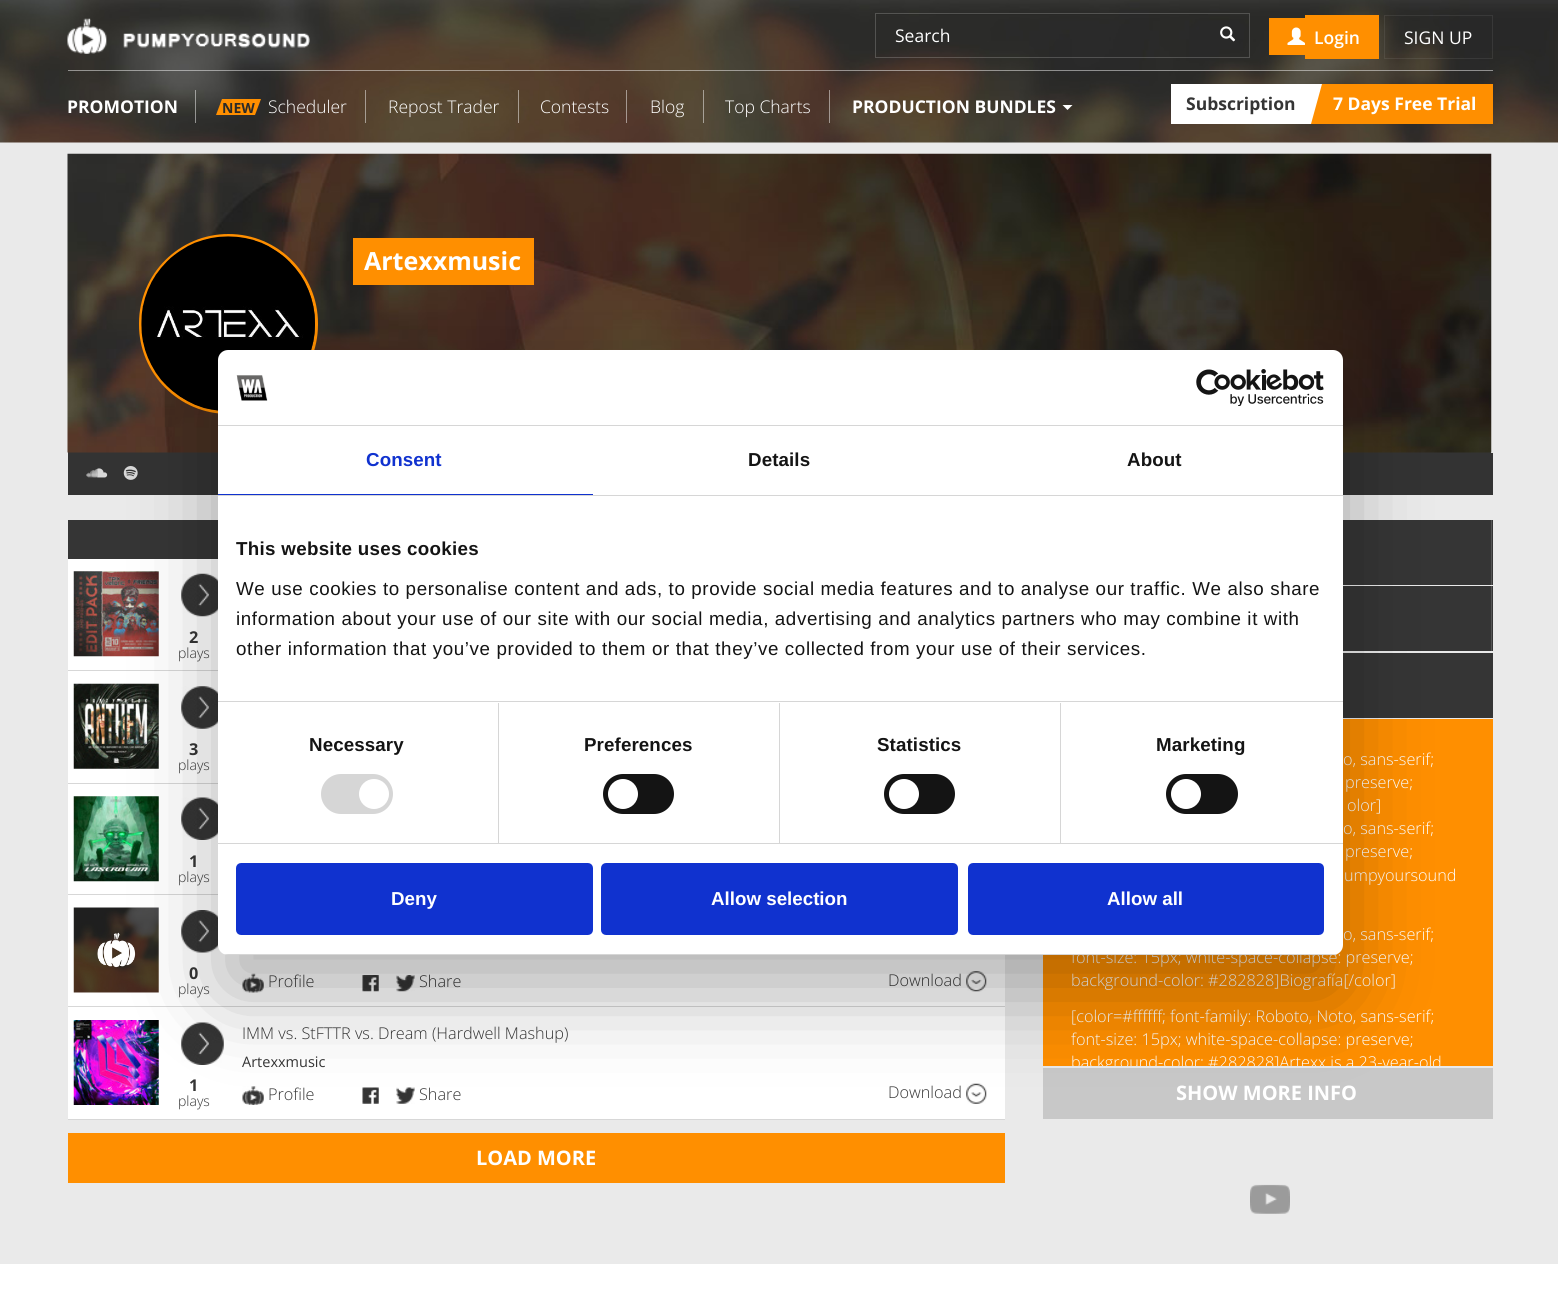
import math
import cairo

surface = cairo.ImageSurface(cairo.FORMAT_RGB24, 1558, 1304)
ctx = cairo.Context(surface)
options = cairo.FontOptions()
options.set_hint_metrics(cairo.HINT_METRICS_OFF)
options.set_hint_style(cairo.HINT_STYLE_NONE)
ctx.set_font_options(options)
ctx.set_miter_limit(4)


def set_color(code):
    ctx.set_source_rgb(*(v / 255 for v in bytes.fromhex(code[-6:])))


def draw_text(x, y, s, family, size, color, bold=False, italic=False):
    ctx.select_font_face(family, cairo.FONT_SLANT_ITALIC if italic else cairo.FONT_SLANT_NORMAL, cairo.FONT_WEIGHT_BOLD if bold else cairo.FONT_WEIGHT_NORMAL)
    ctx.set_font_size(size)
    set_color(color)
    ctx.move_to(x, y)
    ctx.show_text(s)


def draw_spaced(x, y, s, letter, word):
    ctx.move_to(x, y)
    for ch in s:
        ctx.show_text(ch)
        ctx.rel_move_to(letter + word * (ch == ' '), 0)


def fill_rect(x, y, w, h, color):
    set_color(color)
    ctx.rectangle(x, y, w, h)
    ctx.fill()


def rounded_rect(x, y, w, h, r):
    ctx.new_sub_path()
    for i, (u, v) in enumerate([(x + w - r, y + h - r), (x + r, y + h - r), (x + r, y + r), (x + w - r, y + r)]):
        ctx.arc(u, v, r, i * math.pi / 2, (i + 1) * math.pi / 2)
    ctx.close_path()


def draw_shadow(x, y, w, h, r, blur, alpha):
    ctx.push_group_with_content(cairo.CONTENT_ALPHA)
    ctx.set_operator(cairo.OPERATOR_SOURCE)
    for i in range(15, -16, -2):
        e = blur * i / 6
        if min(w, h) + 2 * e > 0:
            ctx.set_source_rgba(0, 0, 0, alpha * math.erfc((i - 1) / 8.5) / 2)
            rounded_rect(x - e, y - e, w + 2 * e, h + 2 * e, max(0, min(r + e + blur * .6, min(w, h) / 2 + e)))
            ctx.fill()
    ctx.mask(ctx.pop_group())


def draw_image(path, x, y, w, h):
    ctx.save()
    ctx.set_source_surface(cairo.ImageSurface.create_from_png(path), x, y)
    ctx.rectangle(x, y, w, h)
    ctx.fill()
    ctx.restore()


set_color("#ffffff")
ctx.paint()
fill_rect(0, 142, 1558, 1122, "#eaeaea")
draw_image("assets/img1.png", 0, 0, 1558, 143)
draw_image("assets/img2.png", 67, 18, 243, 36)
ctx.set_source_rgba(1, 1, 1, 0.48)
ctx.rectangle(68, 70, 1425, 1)
ctx.fill()
ctx.rectangle(875.5, 13.5, 374, 44)
ctx.set_source_rgba(1, 1, 1, 0.19)
ctx.set_line_width(1)
ctx.stroke()
ctx.set_source_rgba(0, 0, 0, 0.07)
ctx.rectangle(876, 14, 332, 1)
ctx.fill()
draw_text(895, 42, "Search", "Open Sans", 17.5, "#ffffff")
draw_image("assets/img3.png", 1220, 26, 16, 16)
fill_rect(1269, 18, 36, 37, "#ff8f00")
fill_rect(1305, 15, 74, 44, "#ff8f00")
draw_image("assets/img4.png", 1287, 27, 18, 18)
draw_text(1314, 44, "Login", "Open Sans SemiBold", 17.5, "#ffffff")
ctx.rectangle(1384.5, 15.5, 108, 43)
ctx.set_source_rgba(0.792, 0.792, 0.792, 0.1)
ctx.stroke()
draw_text(1404, 44, "SIGN UP", "Open Sans", 17.5, "#ffffff")
ctx.set_source_rgba(1, 1, 1, 0.48)
ctx.rectangle(195, 90, 1, 33)
ctx.fill()
draw_text(67, 113, "PROMOTION", "Open Sans", 17.5, "#ffffff", bold=True)
ctx.set_source_rgba(1, 1, 1, 0.48)
ctx.rectangle(365, 90, 1, 33)
ctx.fill()
set_color("#ff8f00")
ctx.new_path()
ctx.move_to(222, 99)
ctx.line_to(261, 99)
ctx.line_to(255, 115)
ctx.line_to(216, 115)
ctx.close_path()
ctx.fill()
draw_text(222, 113, "NEW", "Open Sans", 14, "#2b2b29", bold=True)
draw_text(268, 113, "Scheduler", "Open Sans Light", 17.5, "#ffffff")
ctx.set_source_rgba(1, 1, 1, 0.48)
ctx.rectangle(518, 90, 1, 33)
ctx.fill()
draw_text(388, 113, "Repost Trader", "Open Sans Light", 17.5, "#ffffff")
ctx.set_source_rgba(1, 1, 1, 0.48)
ctx.rectangle(626, 90, 1, 33)
ctx.fill()
draw_text(540, 113, "Contests", "Open Sans Light", 17.5, "#ffffff")
ctx.set_source_rgba(1, 1, 1, 0.48)
ctx.rectangle(703, 90, 1, 33)
ctx.fill()
draw_text(650, 113, "Blog", "Open Sans Light", 17.5, "#ffffff")
ctx.set_source_rgba(1, 1, 1, 0.48)
ctx.rectangle(829, 90, 1, 33)
ctx.fill()
draw_text(725, 113, "Top Charts", "Open Sans Light", 17.5, "#ffffff")
draw_text(852, 113, "PRODUCTION BUNDLES", "Open Sans", 17.5, "#ffffff", bold=True)
ctx.new_path()
ctx.move_to(1062.5, 105)
ctx.line_to(1072.5, 105)
ctx.line_to(1067.5, 110)
ctx.close_path()
ctx.fill()
fill_rect(1171, 84, 137, 40, "#ffffff")
draw_text(1186, 110, "Subscription", "Open Sans", 17.5, "#353535", bold=True)
fill_rect(1311, 84, 182, 40, "#ff8f00")
set_color("#ffffff")
ctx.new_path()
ctx.move_to(1308, 84)
ctx.line_to(1322, 84)
ctx.line_to(1311, 124)
ctx.line_to(1297, 124)
ctx.close_path()
ctx.fill()
draw_text(1333, 110, "7 Days Free Trial", "Open Sans", 17.5, "#ffffff", bold=True)
fill_rect(68, 452, 1423, 1, "#353535")
draw_image("assets/img5.png", 67, 153, 1425, 300)
rounded_rect(140.5, 235.5, 176, 177, 88)
set_color("#ff8f00")
ctx.set_line_width(3)
ctx.stroke()
draw_image("assets/img6.png", 141, 236, 174, 175)
fill_rect(353, 238, 181, 47, "#ff8f00")
draw_text(364, 270, "Artexxmusic", "Open Sans", 25, "#ffffff", bold=True)
fill_rect(68, 453, 1425, 42, "#333333")
draw_image("assets/img7.png", 86, 468, 22, 10)
draw_image("assets/img8.png", 123, 466, 15, 14)
fill_rect(68, 520, 150, 39, "#353535")
fill_rect(68, 559, 150, 111, "#ffffff")
fill_rect(68, 670, 150, 1, "#d7d7d7")
draw_image("assets/img9.png", 73, 571, 86, 86)
draw_image("assets/img10.png", 181, 573, 37, 44)
draw_text(189, 643, "2", "Open Sans", 16.25, "#353535", bold=True)
draw_text(178, 658, "plays", "Open Sans Light", 14, "#353535")
fill_rect(68, 671, 150, 112, "#ffffff")
fill_rect(68, 783, 150, 1, "#d7d7d7")
draw_image("assets/img11.png", 73, 683, 86, 86)
draw_image("assets/img12.png", 181, 686, 37, 43)
draw_text(189, 755, "3", "Open Sans", 16.25, "#353535", bold=True)
draw_text(178, 770, "plays", "Open Sans Light", 14, "#353535")
fill_rect(68, 784, 150, 110, "#ffffff")
fill_rect(68, 894, 150, 1, "#d7d7d7")
draw_image("assets/img13.png", 73, 796, 86, 86)
draw_image("assets/img14.png", 181, 797, 37, 43)
draw_text(189, 867, "1", "Open Sans", 16.25, "#353535", bold=True)
draw_text(178, 882, "plays", "Open Sans Light", 14, "#353535")
fill_rect(68, 895, 937, 224, "#ffffff")
fill_rect(68, 1006, 937, 1, "#d7d7d7")
draw_image("assets/img15.png", 73, 907, 86, 86)
draw_image("assets/img16.png", 181, 910, 41, 43)
draw_text(189, 979, "0", "Open Sans", 16.25, "#353535", bold=True)
draw_text(178, 994, "plays", "Open Sans Light", 14, "#353535")
draw_image("assets/img17.png", 242, 973, 22, 20)
draw_text(268, 987, "Profile", "Open Sans Light", 16.25, "#353535")
draw_image("assets/img18.png", 362, 975, 17, 17)
draw_image("assets/img19.png", 396, 975, 19, 17)
draw_text(419, 987, "Share", "Open Sans Light", 16.25, "#353535")
draw_text(888, 986, "Download", "Open Sans Light", 16.25, "#353535")
draw_image("assets/img20.png", 966, 971, 21, 21)
fill_rect(68, 1119, 937, 1, "#d7d7d7")
draw_image("assets/img21.png", 73, 1020, 86, 85)
draw_image("assets/img22.png", 181, 1022, 43, 43)
draw_text(242, 1039, "IMM vs. StFTTR vs. Dream (Hardwell Mashup)", "Open Sans Light", 16.25, "#353535")
draw_text(242, 1067, "Artexxmusic", "Open Sans", 14.5, "#353535")
draw_image("assets/img23.png", 242, 1086, 22, 19)
draw_text(268, 1100, "Profile", "Open Sans Light", 16.25, "#353535")
draw_image("assets/img24.png", 362, 1087, 17, 17)
draw_image("assets/img25.png", 396, 1087, 19, 17)
draw_text(419, 1100, "Share", "Open Sans Light", 16.25, "#353535")
draw_text(888, 1098, "Download", "Open Sans Light", 16.25, "#353535")
draw_image("assets/img26.png", 966, 1083, 21, 21)
draw_text(189, 1091, "1", "Open Sans", 16.25, "#353535", bold=True)
draw_text(178, 1106, "plays", "Open Sans Light", 14, "#353535")
fill_rect(68, 1133, 937, 50, "#ff8f00")
draw_text(476, 1165, "LOAD MORE", "Open Sans", 20, "#ffffff", bold=True)
fill_rect(1343, 520, 150, 65, "#353535")
fill_rect(1491, 520, 1, 65, "#565656")
fill_rect(1343, 586, 150, 65, "#353535")
fill_rect(1491, 586, 1, 65, "#565656")
fill_rect(1343, 653, 150, 65, "#353535")
fill_rect(1043, 719, 450, 347, "#ff8f00")
draw_text(1343, 765, "o, sans-serif;", "Open Sans Light", 16.25, "#ffffff")
draw_text(1345, 788, "preserve;", "Open Sans Light", 16.25, "#ffffff")
draw_text(1347, 811, "olor]", "Open Sans Light", 16.25, "#ffffff")
draw_text(1343, 834, "o, sans-serif;", "Open Sans Light", 16.25, "#ffffff")
draw_text(1345, 857, "preserve;", "Open Sans Light", 16.25, "#ffffff")
draw_text(1344, 881, "umpyoursound", "Open Sans Light", 16.25, "#ffffff")
draw_text(1343, 940, "o, sans-serif;", "Open Sans Light", 16.25, "#ffffff")
draw_text(1071, 963, "font-size: 15px; white-space-collapse: preserve;", "Open Sans Light", 16.25, "#ffffff")
draw_text(1071, 986, "background-color: #282828]Biografía[/color]", "Open Sans Light", 16.25, "#ffffff")
draw_text(1071, 1022, "[color=#ffffff; font-family: Roboto, Noto, sans-serif;", "Open Sans Light", 16.25, "#ffffff")
draw_text(1071, 1045, "font-size: 15px; white-space-collapse: preserve;", "Open Sans Light", 16.25, "#ffffff")
ctx.save()
ctx.rectangle(1043, 719, 450, 347)
ctx.clip()
draw_text(1071, 1068, "background-color: #282828]Artexx is a 23-year-old", "Open Sans Light", 16.25, "#ffffff")
ctx.restore()
fill_rect(1043, 1068, 450, 51, "#c8c8c8")
draw_text(1176, 1100, "SHOW MORE INFO", "Open Sans", 20, "#ffffff", bold=True)
draw_image("assets/img27.png", 1250, 1184, 40, 30)
set_color("#000000")
draw_shadow(218, 390, 1125, 605, 10, 42.5, 0.3)
set_color("#ffffff")
rounded_rect(218, 350, 1125, 605, 10)
ctx.fill()
fill_rect(218, 425, 1125, 1, "#d6d6d6")
draw_image("assets/img28.png", 236, 375, 32, 26)
draw_image("assets/img29.png", 1196, 369, 128, 37)
fill_rect(218, 495, 1125, 1, "#d6d6d6")
fill_rect(218, 494, 375, 1, "#1032cf")
ctx.select_font_face("Liberation Sans", cairo.FONT_SLANT_NORMAL, cairo.FONT_WEIGHT_BOLD)
ctx.set_font_size(18.75)
draw_spaced(366, 466, "Consent", 0.1, 0)
set_color("#141414")
draw_spaced(748, 466, "Details", 0.1, 0)
draw_spaced(1127, 466, "About", 0.1, 0)
fill_rect(218, 701, 1125, 1, "#d6d6d6")
set_color("#141414")
draw_spaced(236, 555, "This website uses cookies", 0.3, 0)
ctx.select_font_face("Liberation Sans")
draw_spaced(236, 595, "We use cookies to personalise content and ads, to provide social media features and to analyse our traffic. We also share", 0.62, 0)
draw_spaced(236, 625, "information about your use of our site with our social media, advertising and analytics partners who may combine it with", 0.62, 0)
draw_spaced(236, 655, "other information that you’ve provided to them or that they’ve collected from your use of their services.", 0.62, 0)
fill_rect(218, 843, 1125, 1, "#d6d6d6")
fill_rect(498, 703, 1, 140, "#d6d6d6")
ctx.select_font_face("Liberation Sans", cairo.FONT_SLANT_NORMAL, cairo.FONT_WEIGHT_BOLD)
set_color("#141414")
draw_spaced(309, 751, "Necessary", 0.1, 0)
set_color("#d6d6d6")
rounded_rect(321, 774, 72, 40, 20)
ctx.fill()
set_color("#ffffff")
ctx.arc(374, 794, 15, 0, 2 * math.pi)
ctx.fill()
fill_rect(779, 703, 1, 140, "#d6d6d6")
set_color("#141414")
draw_spaced(584, 751, "Preferences", 0.1, 0)
rounded_rect(603, 774, 71, 40, 20)
ctx.fill()
set_color("#ffffff")
ctx.arc(623, 794, 15, 0, 2 * math.pi)
ctx.fill()
fill_rect(1060, 703, 1, 140, "#d6d6d6")
set_color("#141414")
draw_spaced(877, 751, "Statistics", 0.1, 0)
rounded_rect(884, 774, 71, 40, 20)
ctx.fill()
set_color("#ffffff")
ctx.arc(904, 794, 15, 0, 2 * math.pi)
ctx.fill()
set_color("#141414")
draw_spaced(1156, 751, "Marketing", 0.1, 0)
rounded_rect(1166, 774, 72, 40, 20)
ctx.fill()
set_color("#ffffff")
ctx.arc(1186, 794, 15, 0, 2 * math.pi)
ctx.fill()
ctx.save()
rounded_rect(218, 350, 1125, 605, 10)
ctx.clip()
fill_rect(218, 954, 1125, 1, "#d6d6d6")
ctx.restore()
set_color("#1032cf")
rounded_rect(237.5, 864.5, 354, 69, 3.5)
ctx.fill_preserve()
ctx.stroke()
draw_text(391, 905, "Deny", "Liberation Sans", 18.75, "#ffffff", bold=True)
set_color("#1032cf")
rounded_rect(602.5, 864.5, 354, 69, 3.5)
ctx.fill_preserve()
ctx.stroke()
draw_text(711, 905, "Allow selection", "Liberation Sans", 18.75, "#ffffff", bold=True)
set_color("#1032cf")
rounded_rect(969.5, 864.5, 353, 69, 3.5)
ctx.fill_preserve()
ctx.stroke()
draw_text(1107, 905, "Allow all", "Liberation Sans", 18.75, "#ffffff", bold=True)
surface.write_to_png("output.png")
